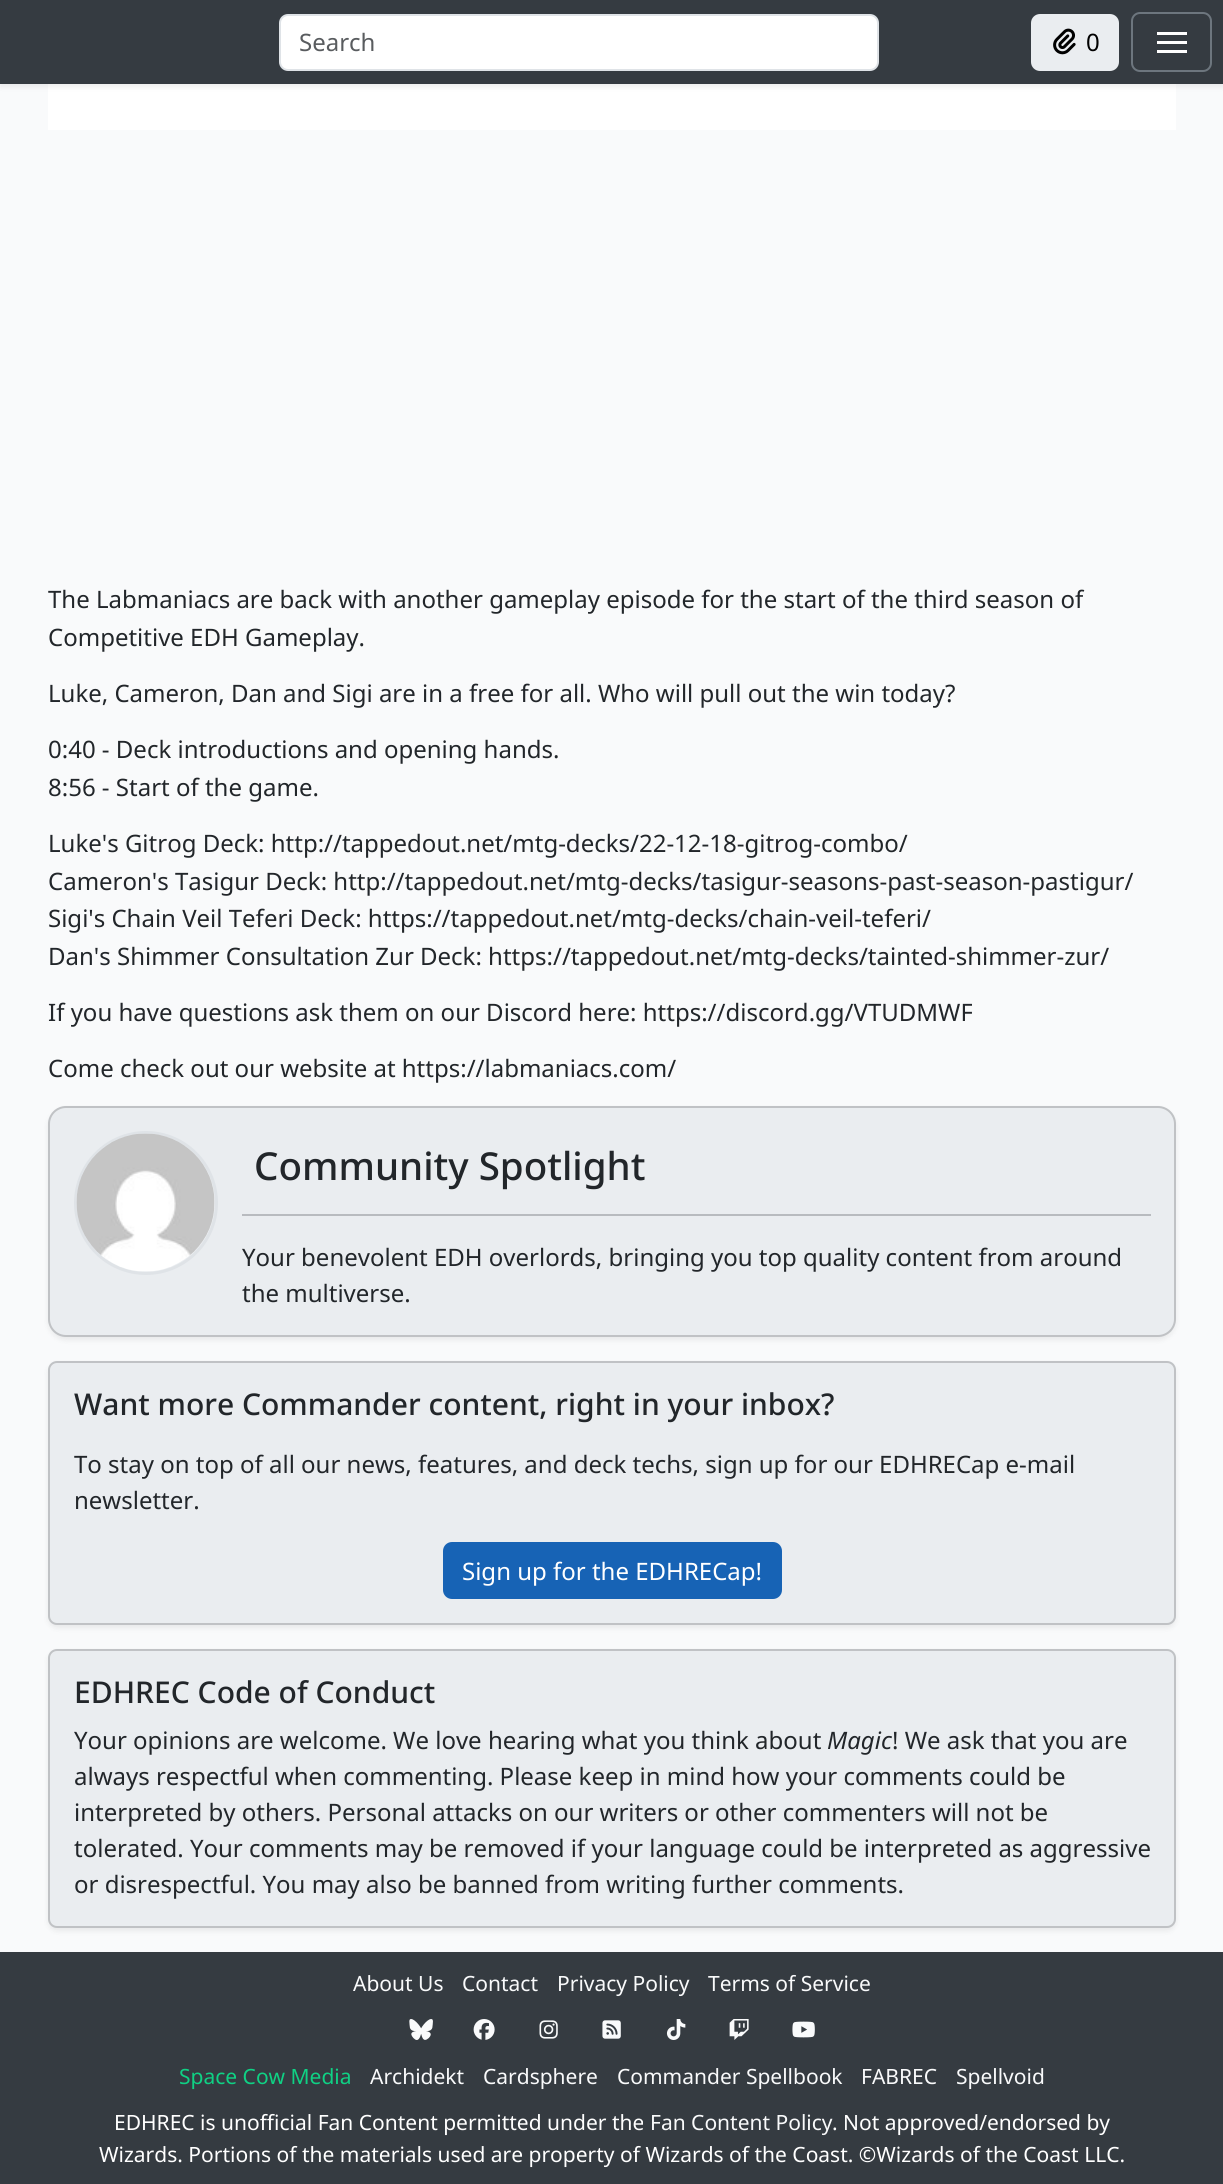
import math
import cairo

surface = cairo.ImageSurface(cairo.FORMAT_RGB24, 1223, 2184)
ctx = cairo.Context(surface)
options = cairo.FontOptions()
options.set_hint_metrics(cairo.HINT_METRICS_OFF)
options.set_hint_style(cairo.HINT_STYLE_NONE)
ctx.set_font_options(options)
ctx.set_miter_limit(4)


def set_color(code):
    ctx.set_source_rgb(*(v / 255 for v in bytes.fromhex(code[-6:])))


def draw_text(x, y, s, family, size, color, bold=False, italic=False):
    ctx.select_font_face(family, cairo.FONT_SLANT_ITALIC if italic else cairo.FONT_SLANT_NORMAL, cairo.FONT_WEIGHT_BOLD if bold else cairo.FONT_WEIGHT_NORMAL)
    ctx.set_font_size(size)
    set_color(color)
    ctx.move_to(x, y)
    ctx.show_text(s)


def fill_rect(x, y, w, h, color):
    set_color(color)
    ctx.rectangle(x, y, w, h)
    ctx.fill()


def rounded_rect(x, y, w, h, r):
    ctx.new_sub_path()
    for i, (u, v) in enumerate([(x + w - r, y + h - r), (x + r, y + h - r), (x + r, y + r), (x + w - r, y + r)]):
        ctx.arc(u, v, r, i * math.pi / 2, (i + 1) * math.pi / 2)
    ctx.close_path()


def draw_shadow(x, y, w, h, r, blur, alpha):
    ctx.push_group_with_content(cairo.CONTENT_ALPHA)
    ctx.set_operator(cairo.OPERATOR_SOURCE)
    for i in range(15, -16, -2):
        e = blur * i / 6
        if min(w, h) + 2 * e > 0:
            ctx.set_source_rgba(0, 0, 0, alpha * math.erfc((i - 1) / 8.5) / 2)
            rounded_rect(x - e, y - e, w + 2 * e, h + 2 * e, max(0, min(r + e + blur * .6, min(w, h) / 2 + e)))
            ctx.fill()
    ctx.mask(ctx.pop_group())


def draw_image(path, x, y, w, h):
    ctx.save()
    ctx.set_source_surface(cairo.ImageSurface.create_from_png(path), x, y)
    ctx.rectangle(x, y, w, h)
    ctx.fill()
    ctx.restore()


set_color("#f9fafb")
ctx.paint()
draw_image("assets/img2.png", 48, 84, 1128, 46)
set_color("#000000")
draw_shadow(0, 3, 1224, 84, 0, 3, 0.07)
fill_rect(0, 0, 1223, 84, "#353b41")
set_color("#ffffff")
rounded_rect(280, 15, 598, 55, 8)
ctx.fill_preserve()
set_color("#dfe3e7")
ctx.stroke()
draw_text(299, 51, "Search", "Noto Sans", 24, "#595c5f")
set_color("#eaedf0")
rounded_rect(1032, 15, 86, 55, 8)
ctx.fill_preserve()
ctx.stroke()
draw_image("assets/img1.png", 1053, 28, 23, 27)
draw_text(1086, 51, "0", "Noto Sans", 24, "#000000")
rounded_rect(1132, 13, 79, 58, 8)
set_color("#6d767e")
ctx.stroke()
fill_rect(1157, 32, 30, 3, "#ffffff")
fill_rect(1157, 41, 30, 3, "#ffffff")
fill_rect(1157, 50, 30, 3, "#ffffff")
draw_text(48, 608, "The Labmaniacs are back with another gameplay episode for the start of the third season of", "Noto Sans", 24, "#22262a")
draw_text(48, 646, "Competitive EDH Gameplay.", "Noto Sans", 24, "#22262a")
draw_text(48, 702, "Luke, Cameron, Dan and Sigi are in a free for all. Who will pull out the win today?", "Noto Sans", 24, "#22262a")
draw_text(48, 758, "0:40 - Deck introductions and opening hands.", "Noto Sans", 24, "#22262a")
draw_text(48, 796, "8:56 - Start of the game.", "Noto Sans", 24, "#22262a")
draw_text(48, 852, "Luke's Gitrog Deck: http://tappedout.net/mtg-decks/22-12-18-gitrog-combo/", "Noto Sans", 24, "#22262a")
draw_text(48, 890, "Cameron's Tasigur Deck: http://tappedout.net/mtg-decks/tasigur-seasons-past-season-pastigur/", "Noto Sans", 24, "#22262a")
draw_text(48, 927, "Sigi's Chain Veil Teferi Deck: https://tappedout.net/mtg-decks/chain-veil-teferi/", "Noto Sans", 24, "#22262a")
draw_text(48, 965, "Dan's Shimmer Consultation Zur Deck: https://tappedout.net/mtg-decks/tainted-shimmer-zur/", "Noto Sans", 24, "#22262a")
draw_text(48, 1021, "If you have questions ask them on our Discord here: https://discord.gg/VTUDMWF", "Noto Sans", 24, "#22262a")
draw_text(48, 1077, "Come check out our website at https://labmaniacs.com/", "Noto Sans", 24, "#22262a")
set_color("#000000")
draw_shadow(48, 1109, 1128, 231, 18, 3, 0.07)
set_color("#eaedf0")
rounded_rect(48, 1106, 1128, 231, 18)
ctx.fill()
rounded_rect(49, 1107, 1126, 229, 17)
ctx.set_source_rgba(0, 0, 0, 0.18)
ctx.stroke()
ctx.arc(146, 1203, 70.5, 0, 2 * math.pi)
set_color("#dfe3e7")
ctx.set_line_width(3)
ctx.stroke()
draw_image("assets/img3.png", 76, 1133, 139, 139)
draw_text(254, 1180, "Community Spotlight", "Noto Sans Medium", 38.5, "#22262a")
fill_rect(242, 1214, 909, 2, "#b8bbbf")
draw_text(242, 1266, "Your benevolent EDH overlords, bringing you top quality content from around", "Noto Sans", 24, "#22262a")
draw_text(242, 1302, "the multiverse.", "Noto Sans", 24, "#22262a")
set_color("#000000")
draw_shadow(48, 1364, 1128, 264, 9, 3, 0.07)
set_color("#eaedf0")
rounded_rect(48, 1361, 1128, 264, 9)
ctx.fill()
rounded_rect(49, 1362, 1126, 262, 8)
ctx.set_source_rgba(0, 0, 0, 0.18)
ctx.set_line_width(2)
ctx.stroke()
draw_text(74, 1415, "Want more Commander content, right in your inbox?", "Noto Sans Medium", 30, "#22262a")
draw_text(74, 1473, "To stay on top of all our news, features, and deck techs, sign up for our EDHRECap e-mail", "Noto Sans", 24, "#22262a")
draw_text(74, 1509, "newsletter.", "Noto Sans", 24, "#22262a")
set_color("#1763b5")
rounded_rect(444, 1543, 337, 55, 8)
ctx.fill_preserve()
ctx.stroke()
draw_text(462, 1580, "Sign up for the EDHRECap!", "Noto Sans", 24, "#ffffff")
set_color("#000000")
draw_shadow(48, 1652, 1128, 279, 9, 3, 0.07)
set_color("#eaedf0")
rounded_rect(48, 1649, 1128, 279, 9)
ctx.fill()
rounded_rect(49, 1650, 1126, 277, 8)
ctx.set_source_rgba(0, 0, 0, 0.18)
ctx.stroke()
draw_text(74, 1703, "EDHREC Code of Conduct", "Noto Sans Medium", 30, "#22262a")
draw_text(74, 1749, "Your opinions are welcome. We love hearing what you think about", "Noto Sans", 24, "#22262a")
draw_text(827, 1749, "Magic", "Noto Sans", 24, "#22262a", italic=True)
draw_text(892, 1749, "! We ask that you are", "Noto Sans", 24, "#22262a")
draw_text(74, 1785, "always respectful when commenting. Please keep in mind how your comments could be", "Noto Sans", 24, "#22262a")
draw_text(74, 1821, "interpreted by others. Personal attacks on our writers or other commenters will not be", "Noto Sans", 24, "#22262a")
draw_text(74, 1857, "tolerated. Your comments may be removed if your language could be interpreted as aggressive", "Noto Sans", 24, "#22262a")
draw_text(74, 1893, "or disrespectful. You may also be banned from writing further comments.", "Noto Sans", 24, "#22262a")
fill_rect(0, 1952, 1223, 232, "#353b41")
draw_text(353, 1991, "About Us", "Noto Sans", 21, "#f9fafb")
draw_text(462, 1991, "Contact", "Noto Sans", 21, "#f9fafb")
draw_text(557, 1991, "Privacy Policy", "Noto Sans", 21, "#f9fafb")
draw_text(708, 1991, "Terms of Service", "Noto Sans", 21, "#f9fafb")
draw_image("assets/img4.png", 409, 2019, 24, 21)
draw_image("assets/img5.png", 473, 2019, 22, 21)
draw_image("assets/img6.png", 539, 2020, 19, 19)
draw_image("assets/img7.png", 602, 2020, 19, 19)
draw_image("assets/img8.png", 666, 2019, 20, 21)
draw_image("assets/img9.png", 729, 2019, 20, 21)
draw_image("assets/img10.png", 792, 2021, 23, 17)
draw_text(179, 2084, "Space Cow Media", "Noto Sans", 21, "#0fd184")
draw_text(370, 2084, "Archidekt", "Noto Sans", 21, "#f9fafb")
draw_text(483, 2084, "Cardsphere", "Noto Sans", 21, "#f9fafb")
draw_text(617, 2084, "Commander Spellbook", "Noto Sans", 21, "#f9fafb")
draw_text(861, 2084, "FABREC", "Noto Sans", 21, "#f9fafb")
draw_text(956, 2084, "Spellvoid", "Noto Sans", 21, "#f9fafb")
draw_text(114, 2130, "EDHREC is unofficial Fan Content permitted under the", "Noto Sans", 21, "#ffffff")
draw_text(650, 2130, "Fan Content Policy", "Noto Sans", 21, "#f9fafb")
draw_text(832, 2130, ". Not approved/endorsed by", "Noto Sans", 21, "#ffffff")
draw_text(99, 2162, "Wizards. Portions of the materials used are property of Wizards of the Coast. ©Wizards of the Coast LLC.", "Noto Sans", 21, "#ffffff")
surface.write_to_png("output.png")
